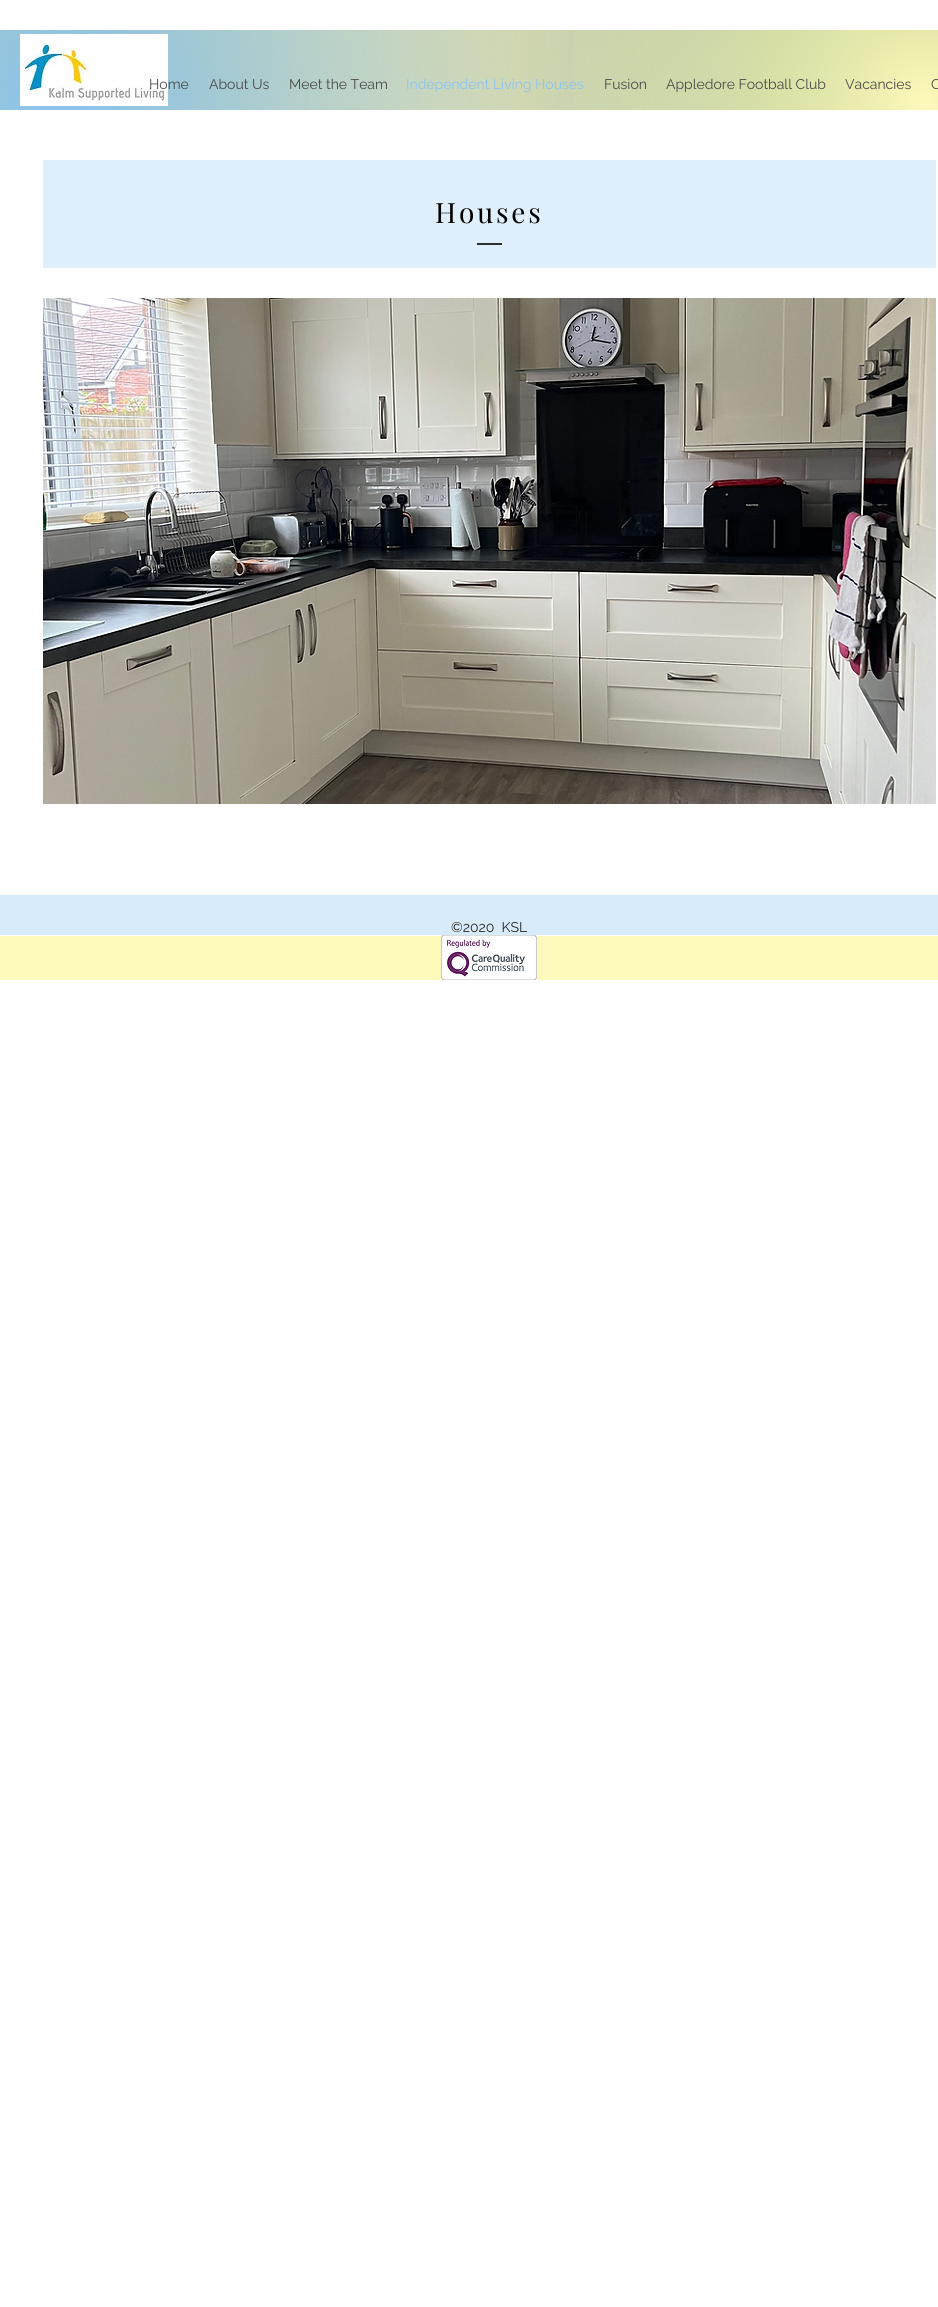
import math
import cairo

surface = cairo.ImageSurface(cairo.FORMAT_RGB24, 938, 2307)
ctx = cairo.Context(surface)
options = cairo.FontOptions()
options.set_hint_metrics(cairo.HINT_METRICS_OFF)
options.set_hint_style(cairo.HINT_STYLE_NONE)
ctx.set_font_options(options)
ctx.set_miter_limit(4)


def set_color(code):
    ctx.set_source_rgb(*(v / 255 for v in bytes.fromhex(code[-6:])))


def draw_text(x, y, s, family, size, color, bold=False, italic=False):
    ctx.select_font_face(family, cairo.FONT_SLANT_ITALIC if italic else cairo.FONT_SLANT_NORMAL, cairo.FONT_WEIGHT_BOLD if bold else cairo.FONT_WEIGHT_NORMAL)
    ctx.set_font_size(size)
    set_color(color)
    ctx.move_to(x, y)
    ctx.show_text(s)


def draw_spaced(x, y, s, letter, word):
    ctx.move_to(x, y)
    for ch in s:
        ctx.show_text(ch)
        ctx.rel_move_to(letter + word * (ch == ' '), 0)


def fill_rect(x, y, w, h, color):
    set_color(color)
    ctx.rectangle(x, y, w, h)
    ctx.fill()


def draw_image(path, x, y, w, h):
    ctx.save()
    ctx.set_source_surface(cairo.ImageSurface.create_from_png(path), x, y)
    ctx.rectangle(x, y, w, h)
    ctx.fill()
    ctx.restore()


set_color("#ffffff")
ctx.paint()
gradient = cairo.RadialGradient(918, 39, 0, 918, 39, 921)
gradient.add_color_stop_rgba(0, 0.545, 0.659, 0.427, 1)
gradient.add_color_stop_rgba(0.7, 1, 1, 1, 1)
ctx.set_source(gradient)
ctx.rectangle(284, 30, 654, 80)
ctx.fill()
gradient = cairo.RadialGradient(60, 40, 0, 60, 40, 922)
gradient.add_color_stop_rgba(0, 0.788, 0.773, 0.467, 1)
gradient.add_color_stop_rgba(0.7, 0.788, 0.773, 0.467, 0)
ctx.set_source(gradient)
ctx.rectangle(0, 30, 677, 80)
ctx.fill()
gradient = cairo.RadialGradient(64, 100, 0, 64, 100, 919)
gradient.add_color_stop_rgba(0, 0.537, 0.769, 0.949, 0.99)
gradient.add_color_stop_rgba(0.5, 0.537, 0.769, 0.949, 0)
ctx.set_source(gradient)
ctx.rectangle(0, 30, 513, 80)
ctx.fill()
gradient = cairo.RadialGradient(925, 102, 0, 925, 102, 927)
gradient.add_color_stop_rgba(0, 0.992, 0.976, 0.729, 1)
gradient.add_color_stop_rgba(0.4, 0.992, 0.976, 0.729, 0)
ctx.set_source(gradient)
ctx.rectangle(573, 30, 365, 80)
ctx.fill()
draw_image("assets/img1.png", 20, 34, 148, 72)
draw_text(149, 89, "Home", "Raleway", 14, "#4a4a4a")
draw_text(209, 89, "About Us", "Raleway", 14, "#4a4a4a")
draw_text(289, 89, "Meet the Team", "Raleway", 14, "#4a4a4a")
draw_text(406, 89, "Independent Living Houses", "Raleway", 14, "#89c4f2")
draw_text(604, 89, "Fusion", "Raleway", 14, "#4a4a4a")
draw_text(666, 89, "Appledore Football Club", "Raleway", 14, "#4a4a4a")
draw_text(845, 89, "Vacancies", "Raleway", 14, "#4a4a4a")
draw_text(931, 89, "C", "Raleway", 14, "#4a4a4a")
fill_rect(43, 160, 893, 108, "#dfeffb")
ctx.select_font_face("Playfair Display")
ctx.set_font_size(28)
set_color("#000000")
draw_spaced(435, 223, "Houses", 2.75, 0)
fill_rect(477, 243, 25, 2, "#2f2e2e")
draw_image("assets/img2.png", 43, 298, 893, 506)
fill_rect(0, 895, 938, 40, "#d7ebfa")
draw_text(451, 932, "©2020  KSL", "Raleway", 14, "#252525")
fill_rect(0, 936, 938, 44, "#fdf9ba")
draw_image("assets/img3.png", 441, 935, 96, 45)
surface.write_to_png("output.png")
